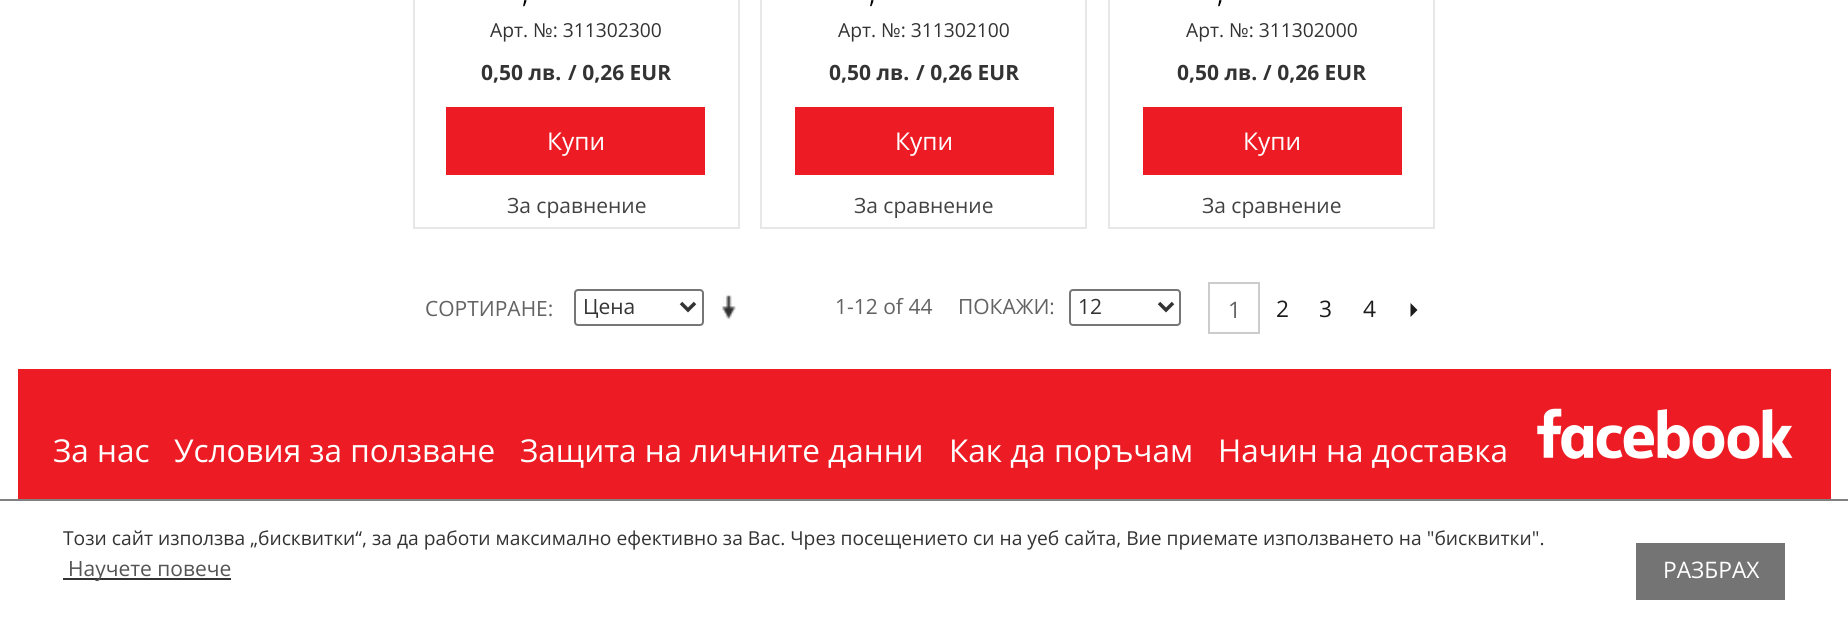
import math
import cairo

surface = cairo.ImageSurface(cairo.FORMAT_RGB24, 1848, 626)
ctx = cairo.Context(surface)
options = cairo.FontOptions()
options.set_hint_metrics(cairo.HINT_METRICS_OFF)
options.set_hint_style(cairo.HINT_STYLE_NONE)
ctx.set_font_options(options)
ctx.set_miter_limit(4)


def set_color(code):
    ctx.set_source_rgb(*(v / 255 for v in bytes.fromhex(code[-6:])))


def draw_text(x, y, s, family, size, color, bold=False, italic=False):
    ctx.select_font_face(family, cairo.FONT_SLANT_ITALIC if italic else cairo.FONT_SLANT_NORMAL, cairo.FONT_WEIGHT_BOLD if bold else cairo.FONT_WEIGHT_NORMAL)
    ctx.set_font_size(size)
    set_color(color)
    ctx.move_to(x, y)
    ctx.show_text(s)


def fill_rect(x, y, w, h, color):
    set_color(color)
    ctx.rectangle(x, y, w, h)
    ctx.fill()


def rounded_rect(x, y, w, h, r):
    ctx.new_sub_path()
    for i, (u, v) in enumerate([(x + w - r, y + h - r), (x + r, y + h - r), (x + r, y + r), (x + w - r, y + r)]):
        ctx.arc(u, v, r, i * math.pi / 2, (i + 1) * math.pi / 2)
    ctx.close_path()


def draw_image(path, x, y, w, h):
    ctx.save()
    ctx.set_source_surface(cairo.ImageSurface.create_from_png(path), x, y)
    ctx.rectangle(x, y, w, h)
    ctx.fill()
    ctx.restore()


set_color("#ffffff")
ctx.paint()
ctx.rectangle(414, -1, 325, 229)
set_color("#e7e7e7")
ctx.stroke()
draw_text(522, 3, ",", "Open Sans", 24.5, "#000000")
draw_text(490, 37, "Арт. №: 311302300", "Open Sans", 19.25, "#333333")
draw_text(481, 80, "0,50 лв.", "Open Sans", 21, "#333333", bold=True)
draw_text(568, 80, "/ 0,26 EUR", "Open Sans", 21, "#333333", bold=True)
fill_rect(446, 107, 259, 68, "#ed1c24")
draw_text(547, 150, "Купи", "Open Sans", 24.5, "#ffffff")
draw_text(507, 213, "За сравнение", "Open Sans", 21, "#424242")
ctx.rectangle(761, -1, 325, 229)
set_color("#e7e7e7")
ctx.stroke()
draw_text(869, 3, ",", "Open Sans", 24.5, "#000000")
draw_text(838, 37, "Арт. №: 311302100", "Open Sans", 19.25, "#333333")
draw_text(829, 80, "0,50 лв.", "Open Sans", 21, "#333333", bold=True)
draw_text(916, 80, "/ 0,26 EUR", "Open Sans", 21, "#333333", bold=True)
fill_rect(795, 107, 259, 68, "#ed1c24")
draw_text(895, 150, "Купи", "Open Sans", 24.5, "#ffffff")
draw_text(854, 213, "За сравнение", "Open Sans", 21, "#424242")
ctx.rectangle(1109, -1, 325, 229)
set_color("#e7e7e7")
ctx.stroke()
draw_text(1217, 3, ",", "Open Sans", 24.5, "#000000")
draw_text(1186, 37, "Арт. №: 311302000", "Open Sans", 19.25, "#333333")
draw_text(1177, 80, "0,50 лв.", "Open Sans", 21, "#333333", bold=True)
draw_text(1263, 80, "/ 0,26 EUR", "Open Sans", 21, "#333333", bold=True)
fill_rect(1143, 107, 259, 68, "#ed1c24")
draw_text(1243, 150, "Купи", "Open Sans", 24.5, "#ffffff")
draw_text(1202, 213, "За сравнение", "Open Sans", 21, "#424242")
draw_text(425, 316, "СОРТИРАНЕ:", "Open Sans", 21, "#636363")
rounded_rect(575, 290, 128, 35, 3)
set_color("#767676")
ctx.stroke()
ctx.new_path()
ctx.move_to(681, 303)
ctx.line_to(688, 310)
ctx.line_to(695, 303)
set_color("#333333")
ctx.set_line_width(3.5)
ctx.stroke()
draw_text(583, 314, "Цена", "Open Sans", 21, "#333333")
draw_image("assets/img1.png", 721, 294, 15, 26)
draw_text(835, 314, "1-12 of 44", "Open Sans", 21, "#636363")
draw_text(958, 314, "ПОКАЖИ:", "Open Sans", 21, "#636363")
rounded_rect(1070, 290, 110, 35, 3)
set_color("#767676")
ctx.set_line_width(2)
ctx.stroke()
ctx.new_path()
ctx.move_to(1159, 303)
ctx.line_to(1166, 310)
ctx.line_to(1173, 303)
set_color("#333333")
ctx.set_line_width(3.5)
ctx.stroke()
draw_text(1078, 314, "12", "Open Sans", 21, "#333333")
ctx.rectangle(1209, 283, 50, 50)
set_color("#cccccc")
ctx.set_line_width(2)
ctx.stroke()
draw_text(1228, 318, "1", "Open Sans", 22.75, "#636363")
draw_text(1276, 317, "2", "Open Sans", 22.75, "#1c1c1c")
draw_text(1319, 317, "3", "Open Sans", 22.75, "#1c1c1c")
draw_text(1363, 317, "4", "Open Sans", 22.75, "#1c1c1c")
ctx.new_path()
ctx.move_to(1410.5, 317)
ctx.line_to(1410.5, 303)
ctx.line_to(1417.5, 310)
ctx.close_path()
ctx.fill()
fill_rect(18, 369, 1813, 130, "#ed1c24")
draw_text(53, 462, "За нас", "Open Sans", 31.5, "#ffffff")
draw_text(174, 462, "Условия за ползване", "Open Sans", 31.5, "#ffffff")
draw_text(520, 462, "Защита на личните данни", "Open Sans", 31.5, "#ffffff")
draw_text(949, 462, "Как да поръчам", "Open Sans", 31.5, "#ffffff")
draw_text(1218, 462, "Начин на доставка", "Open Sans", 31.5, "#ffffff")
draw_image("assets/img2.png", 1537, 408, 256, 51)
fill_rect(0, 499, 1848, 2, "#808080")
draw_text(63, 545, "Този сайт използва „бисквитки“, за да работи максимално ефективно за Вас. Чрез посещението си на уеб сайта, Вие приемате използването на \"бисквитки\".", "Open Sans", 19.25, "#333333")
fill_rect(63, 578, 168, 2, "#333333")
draw_text(68, 576, "Научете повече", "Open Sans", 21, "#545454")
fill_rect(1636, 543, 149, 57, "#747474")
draw_text(1663, 578, "РАЗБРАХ", "Open Sans", 22.75, "#ffffff")
surface.write_to_png("output.png")
